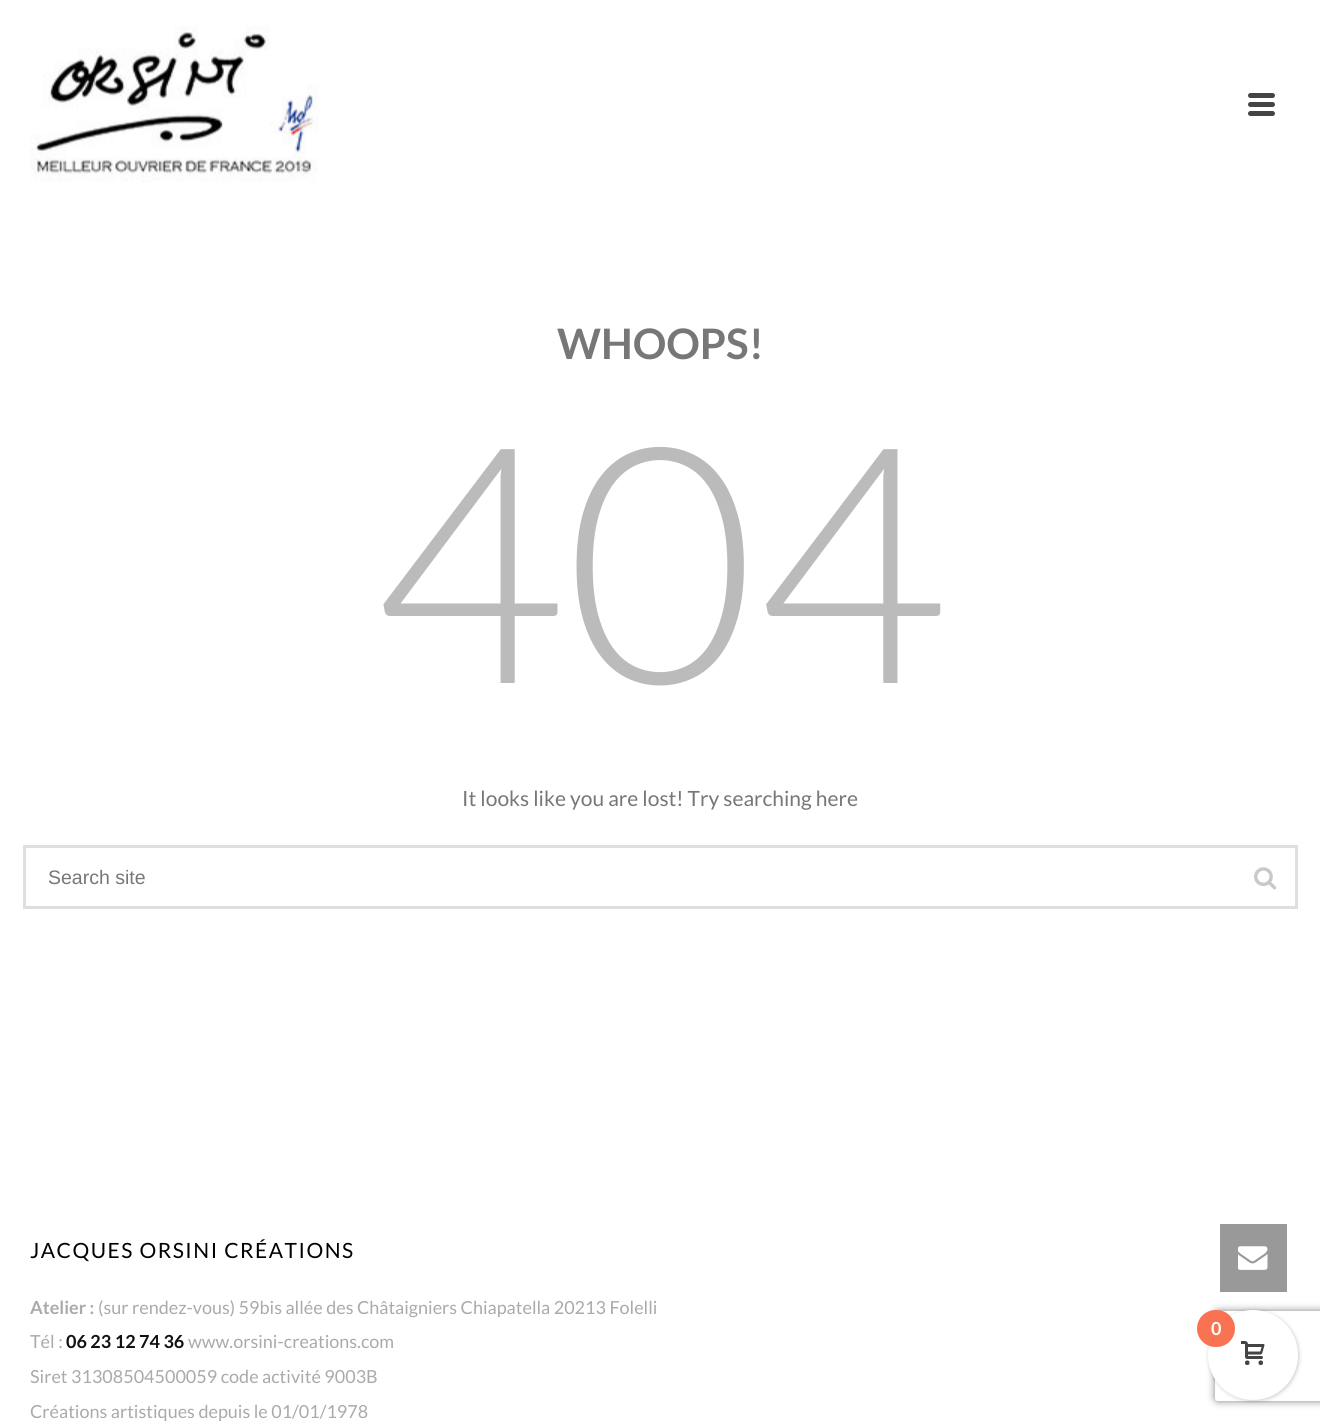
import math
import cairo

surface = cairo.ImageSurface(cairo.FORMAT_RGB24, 1320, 1421)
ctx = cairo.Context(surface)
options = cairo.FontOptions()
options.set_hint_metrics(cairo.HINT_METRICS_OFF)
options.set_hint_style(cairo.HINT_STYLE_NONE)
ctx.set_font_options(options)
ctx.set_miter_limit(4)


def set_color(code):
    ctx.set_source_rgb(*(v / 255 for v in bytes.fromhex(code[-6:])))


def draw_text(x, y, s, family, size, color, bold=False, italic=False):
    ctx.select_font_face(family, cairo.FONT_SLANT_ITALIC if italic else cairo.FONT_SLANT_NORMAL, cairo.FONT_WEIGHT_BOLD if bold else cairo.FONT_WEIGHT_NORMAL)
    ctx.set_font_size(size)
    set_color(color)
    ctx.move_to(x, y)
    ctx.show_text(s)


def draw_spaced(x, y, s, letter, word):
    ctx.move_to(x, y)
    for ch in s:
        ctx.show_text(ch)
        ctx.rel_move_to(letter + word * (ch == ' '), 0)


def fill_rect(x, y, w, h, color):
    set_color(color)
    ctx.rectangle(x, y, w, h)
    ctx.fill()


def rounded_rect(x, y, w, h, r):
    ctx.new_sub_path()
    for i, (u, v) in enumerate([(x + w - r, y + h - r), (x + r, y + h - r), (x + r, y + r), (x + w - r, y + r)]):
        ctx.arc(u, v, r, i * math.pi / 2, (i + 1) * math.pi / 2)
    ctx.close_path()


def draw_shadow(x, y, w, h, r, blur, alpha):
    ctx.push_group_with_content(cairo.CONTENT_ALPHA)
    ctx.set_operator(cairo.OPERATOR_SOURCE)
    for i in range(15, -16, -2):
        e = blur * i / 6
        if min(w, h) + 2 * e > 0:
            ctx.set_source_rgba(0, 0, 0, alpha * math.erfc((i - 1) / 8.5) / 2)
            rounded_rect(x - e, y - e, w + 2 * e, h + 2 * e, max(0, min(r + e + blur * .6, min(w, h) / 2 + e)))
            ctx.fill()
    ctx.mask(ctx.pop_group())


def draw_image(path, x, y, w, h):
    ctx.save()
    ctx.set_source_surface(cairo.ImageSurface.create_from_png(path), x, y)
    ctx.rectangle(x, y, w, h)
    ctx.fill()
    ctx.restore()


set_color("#ffffff")
ctx.paint()
draw_image("assets/img1.png", 30, 25, 288, 157)
set_color("#444444")
rounded_rect(1248, 93, 27, 5, 2.5)
ctx.fill()
rounded_rect(1248, 102, 27, 5, 2.5)
ctx.fill()
rounded_rect(1248, 111, 27, 5, 2.5)
ctx.fill()
draw_text(557, 359, "WHOOPS!", "Lato", 42, "#777777", bold=True)
draw_text(373, 683, "404", "Lato Light", 330, "#bbbbbb")
draw_text(462, 806, "It looks like you are lost! Try searching here", "Lato", 21, "#777777")
ctx.rectangle(24.5, 846.5, 1272, 61)
set_color("#dfdfdf")
ctx.set_line_width(3)
ctx.stroke()
draw_text(48, 884, "Search site", "Liberation Sans", 19.5, "#777777")
draw_image("assets/img2.png", 1254, 867, 23, 23)
ctx.select_font_face("Lato")
ctx.set_font_size(21)
set_color("#000000")
draw_spaced(30, 1258, "JACQUES ORSINI CRÉATIONS", 1.5, 0)
draw_text(30, 1314, "Atelier :", "Lato", 18, "#aaaaaa", bold=True)
draw_text(98, 1314, "(sur rendez-vous) 59bis allée des Châtaigniers Chiapatella 20213 Folelli", "Lato", 18, "#aaaaaa")
draw_text(30, 1348, "Tél :", "Lato", 18, "#aaaaaa")
draw_text(66, 1348, "06 23 12 74 36", "Lato", 18, "#111111", bold=True)
draw_text(188, 1348, "www.orsini-creations.com", "Lato", 18, "#aaaaaa")
draw_text(30, 1383, "Siret 31308504500059 code activité 9003B", "Lato", 18, "#aaaaaa")
draw_text(30, 1418, "Créations artistiques depuis le 01/01/1978", "Lato", 18, "#aaaaaa")
ctx.save()
ctx.set_fill_rule(cairo.FILL_RULE_EVEN_ODD)
ctx.new_path()
ctx.move_to(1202, 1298)
ctx.line_to(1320, 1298)
ctx.line_to(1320, 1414)
ctx.line_to(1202, 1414)
ctx.close_path()
ctx.move_to(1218, 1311)
ctx.line_to(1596, 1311)
ctx.curve_to(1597.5, 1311, 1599, 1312.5, 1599, 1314)
ctx.line_to(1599, 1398)
ctx.curve_to(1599, 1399.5, 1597.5, 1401, 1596, 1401)
ctx.line_to(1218, 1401)
ctx.curve_to(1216.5, 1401, 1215, 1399.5, 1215, 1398)
ctx.line_to(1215, 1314)
ctx.curve_to(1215, 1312.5, 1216.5, 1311, 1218, 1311)
ctx.close_path()
ctx.clip()
set_color("#808080")
draw_shadow(1215, 1311, 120, 90, 3, 4, 1)
ctx.restore()
fill_rect(1220, 1224, 67, 68, "#999999")
draw_image("assets/img3.png", 1238, 1246, 30, 24)
set_color("#000000")
draw_shadow(1209, 1311, 90, 90, 45, 2, 0.2)
set_color("#ffffff")
ctx.arc(1253, 1355, 45, 0, 2 * math.pi)
ctx.fill()
set_color("#f97352")
rounded_rect(1197, 1310, 38, 37, 18.5)
ctx.fill()
draw_text(1211, 1335, "0", "Lato", 18, "#ffffff", bold=True)
draw_image("assets/img4.png", 1241, 1341, 24, 24)
surface.write_to_png("output.png")
